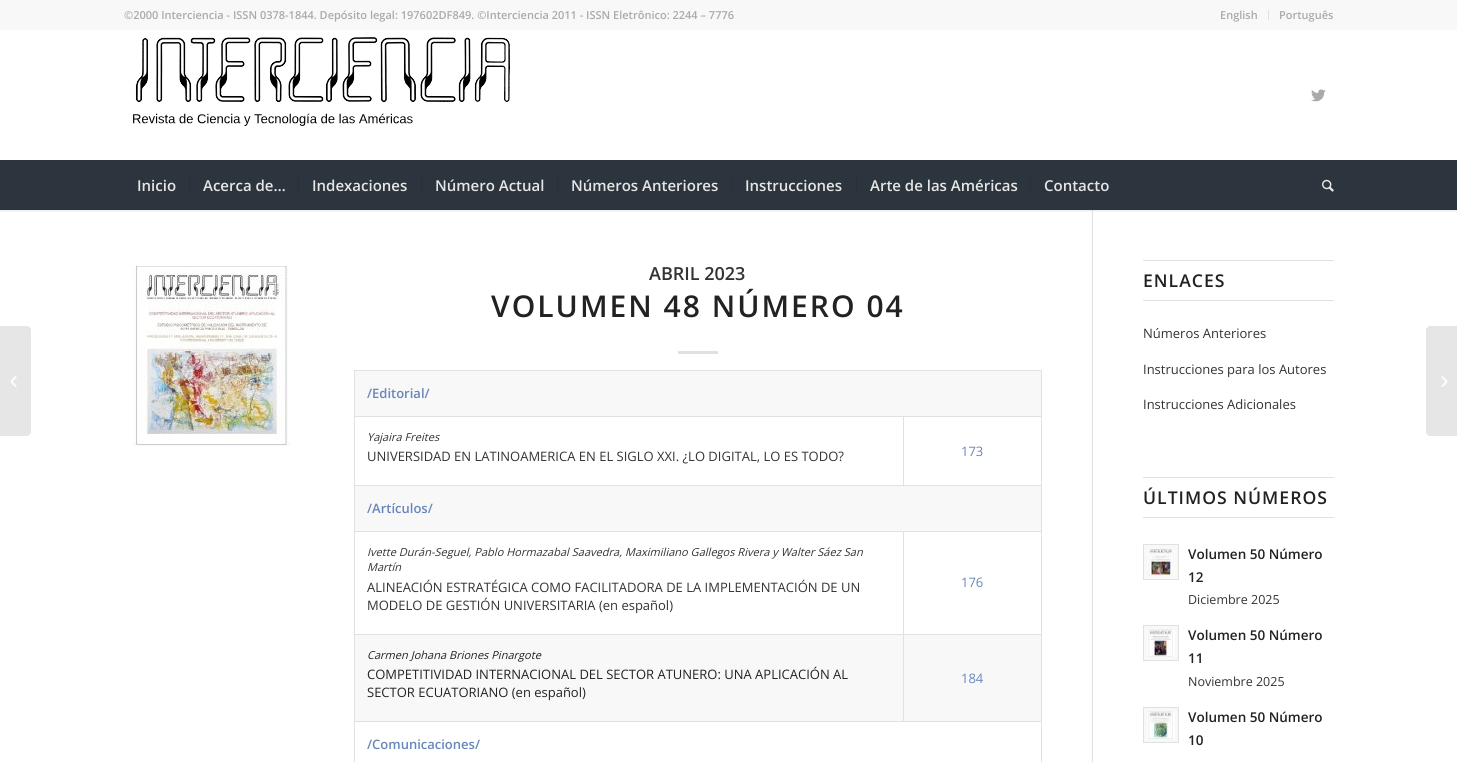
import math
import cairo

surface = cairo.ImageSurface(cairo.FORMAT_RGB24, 1457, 762)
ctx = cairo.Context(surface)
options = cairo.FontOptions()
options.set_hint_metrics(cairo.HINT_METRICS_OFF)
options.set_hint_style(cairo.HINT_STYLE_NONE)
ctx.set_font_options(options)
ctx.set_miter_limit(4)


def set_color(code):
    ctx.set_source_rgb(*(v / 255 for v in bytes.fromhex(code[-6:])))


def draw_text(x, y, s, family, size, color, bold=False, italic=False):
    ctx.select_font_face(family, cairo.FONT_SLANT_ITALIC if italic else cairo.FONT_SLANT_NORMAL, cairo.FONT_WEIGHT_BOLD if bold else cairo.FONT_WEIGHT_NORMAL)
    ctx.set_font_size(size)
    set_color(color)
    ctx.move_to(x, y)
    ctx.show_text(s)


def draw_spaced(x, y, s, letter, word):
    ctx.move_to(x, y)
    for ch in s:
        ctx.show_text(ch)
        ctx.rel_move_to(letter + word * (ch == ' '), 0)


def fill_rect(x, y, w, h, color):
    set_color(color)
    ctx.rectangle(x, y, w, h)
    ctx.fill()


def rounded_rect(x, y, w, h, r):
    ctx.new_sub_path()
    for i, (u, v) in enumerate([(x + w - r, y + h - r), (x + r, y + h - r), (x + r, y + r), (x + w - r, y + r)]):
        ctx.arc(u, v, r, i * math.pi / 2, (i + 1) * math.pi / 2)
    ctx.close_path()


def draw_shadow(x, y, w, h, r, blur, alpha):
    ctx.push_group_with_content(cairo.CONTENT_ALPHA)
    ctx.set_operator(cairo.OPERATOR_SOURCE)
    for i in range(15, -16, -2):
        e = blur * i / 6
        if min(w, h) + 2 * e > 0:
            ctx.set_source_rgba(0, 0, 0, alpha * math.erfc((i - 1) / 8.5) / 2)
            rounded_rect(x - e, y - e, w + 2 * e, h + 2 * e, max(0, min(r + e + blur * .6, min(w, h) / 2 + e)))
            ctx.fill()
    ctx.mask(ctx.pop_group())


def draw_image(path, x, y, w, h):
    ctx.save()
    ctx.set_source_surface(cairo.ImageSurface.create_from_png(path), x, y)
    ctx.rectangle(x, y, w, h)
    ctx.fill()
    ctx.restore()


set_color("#ffffff")
ctx.paint()
fill_rect(1092, 210, 1, 552, "#e1e1e1")
set_color("#000000")
draw_shadow(-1, -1, 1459, 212, 0, 1, 0.1)
fill_rect(0, 0, 1457, 30, "#f8f8f8")
draw_text(124, 19, "©2000 Interciencia - ISSN 0378-1844. Depósito legal: 197602DF849. ©Interciencia 2011 - ISSN Eletrônico: 2244 – 7776", "Open Sans SemiBold", 11, "#aaaaaa")
fill_rect(1268, 10, 1, 10, "#e1e1e1")
draw_text(1220, 19, "English", "Open Sans SemiBold", 11, "#aaaaaa")
draw_text(1279, 19, "Português", "Open Sans SemiBold", 11, "#aaaaaa")
fill_rect(0, 30, 1457, 130, "#ffffff")
draw_image("assets/img1.png", 133, 37, 377, 89)
draw_image("assets/img2.png", 1311, 89, 15, 13)
fill_rect(0, 160, 1457, 50, "#2c353d")
draw_text(137, 191, "Inicio", "Open Sans SemiBold", 15, "#e6e6e6")
draw_text(203, 191, "Acerca de…", "Open Sans SemiBold", 15, "#e6e6e6")
fill_rect(189, 175, 1, 20, "#2c3033")
draw_text(312, 191, "Indexaciones", "Open Sans SemiBold", 15, "#e6e6e6")
fill_rect(298, 175, 1, 20, "#2c3033")
draw_text(435, 191, "Número Actual", "Open Sans SemiBold", 15, "#e6e6e6")
fill_rect(421, 175, 1, 20, "#2c3033")
draw_text(571, 191, "Números Anteriores", "Open Sans SemiBold", 15, "#e6e6e6")
fill_rect(557, 175, 1, 20, "#2c3033")
draw_text(745, 191, "Instrucciones", "Open Sans SemiBold", 15, "#e6e6e6")
fill_rect(731, 175, 1, 20, "#2c3033")
draw_text(870, 191, "Arte de las Américas", "Open Sans SemiBold", 15, "#e6e6e6")
fill_rect(856, 175, 1, 20, "#2c3033")
draw_text(1044, 191, "Contacto", "Open Sans SemiBold", 15, "#e6e6e6")
fill_rect(1030, 175, 1, 20, "#2c3033")
draw_image("assets/img3.png", 1322, 179, 12, 13)
set_color("#e6e6e6")
ctx.new_path()
ctx.move_to(0, 326)
ctx.line_to(27, 326)
ctx.curve_to(29, 326, 31, 328, 31, 330)
ctx.line_to(31, 432)
ctx.curve_to(31, 434, 29, 436, 27, 436)
ctx.line_to(0, 436)
ctx.close_path()
ctx.fill()
draw_image("assets/img4.png", 10, 376, 7, 11)
draw_image("assets/img5.png", 124, 266, 180, 180)
draw_text(649, 280, "ABRIL 2023", "Open Sans SemiBold", 18, "#333333")
ctx.set_font_size(30)
set_color("#222222")
draw_spaced(491, 317, "VOLUMEN 48 NÚMERO 04", 2, 0)
fill_rect(678, 351, 40, 3, "#e1e1e1")
fill_rect(355, 371, 686, 350, "#f8f8f8")
fill_rect(354, 370, 688, 1, "#e1e1e1")
fill_rect(1041, 416, 1, 346, "#e1e1e1")
fill_rect(1041, 370, 1, 47, "#e1e1e1")
fill_rect(355, 417, 686, 68, "#ffffff")
fill_rect(903, 485, 139, 1, "#e1e1e1")
fill_rect(903, 416, 1, 70, "#e1e1e1")
fill_rect(355, 532, 686, 102, "#ffffff")
fill_rect(903, 721, 139, 1, "#e1e1e1")
fill_rect(903, 634, 1, 88, "#e1e1e1")
fill_rect(903, 634, 139, 1, "#e1e1e1")
fill_rect(903, 531, 1, 104, "#e1e1e1")
fill_rect(354, 721, 1, 41, "#e1e1e1")
fill_rect(354, 721, 550, 1, "#e1e1e1")
fill_rect(354, 634, 1, 88, "#e1e1e1")
fill_rect(354, 634, 550, 1, "#e1e1e1")
fill_rect(354, 531, 1, 104, "#e1e1e1")
fill_rect(354, 531, 688, 1, "#e1e1e1")
fill_rect(354, 485, 1, 47, "#e1e1e1")
fill_rect(354, 485, 550, 1, "#e1e1e1")
fill_rect(354, 416, 1, 70, "#e1e1e1")
fill_rect(354, 416, 688, 1, "#e1e1e1")
fill_rect(354, 370, 1, 47, "#e1e1e1")
draw_text(367, 398, "/Editorial/", "Open Sans SemiBold", 13, "#6786bb")
draw_text(367, 441, "Yajaira Freites", "Open Sans", 11.05, "#333333", italic=True)
draw_text(367, 461, "UNIVERSIDAD EN LATINOAMERICA EN EL SIGLO XXI. ¿LO DIGITAL, LO ES TODO?", "Open Sans", 13, "#333333")
draw_text(961, 456, "173", "Open Sans", 13, "#6786bb")
draw_text(367, 513, "/Artículos/", "Open Sans SemiBold", 13, "#6786bb")
draw_text(367, 556, "Ivette Durán-Seguel, Pablo Hormazabal Saavedra, Maximiliano Gallegos Rivera y Walter Sáez San", "Open Sans", 11.05, "#333333", italic=True)
draw_text(367, 571, "Martín", "Open Sans", 11.05, "#333333", italic=True)
draw_text(367, 592, "ALINEACIÓN ESTRATÉGICA COMO FACILITADORA DE LA IMPLEMENTACIÓN DE UN", "Open Sans", 13, "#333333")
draw_text(367, 610, "MODELO DE GESTIÓN UNIVERSITARIA (en español)", "Open Sans", 13, "#333333")
draw_text(961, 587, "176", "Open Sans", 13, "#6786bb")
draw_text(367, 659, "Carmen Johana Briones Pinargote", "Open Sans", 11.05, "#222222", italic=True)
draw_text(367, 679, "COMPETITIVIDAD INTERNACIONAL DEL SECTOR ATUNERO: UNA APLICACIÓN AL", "Open Sans", 13, "#222222")
draw_text(367, 697, "SECTOR ECUATORIANO (en español)", "Open Sans", 13, "#222222")
draw_text(961, 683, "184", "Open Sans", 13, "#6786bb")
draw_text(367, 749, "/Comunicaciones/", "Open Sans SemiBold", 13, "#6786bb")
fill_rect(1143, 260, 191, 1, "#e1e1e1")
fill_rect(1143, 300, 191, 1, "#e1e1e1")
ctx.set_font_size(17.6)
set_color("#222222")
draw_spaced(1143, 287, "ENLACES", 1, 0)
draw_text(1143, 338, "Números Anteriores", "Open Sans", 13, "#333333")
draw_text(1143, 374, "Instrucciones para los Autores", "Open Sans", 13, "#333333")
draw_text(1143, 409, "Instrucciones Adicionales", "Open Sans", 13, "#333333")
fill_rect(1143, 477, 191, 1, "#e1e1e1")
fill_rect(1143, 517, 191, 1, "#e1e1e1")
ctx.select_font_face("Open Sans SemiBold")
ctx.set_font_size(17.6)
set_color("#222222")
draw_spaced(1143, 504, "ÚLTIMOS NÚMEROS", 1, 0)
set_color("#f8f8f8")
ctx.rectangle(1143.5, 544.5, 35, 35)
ctx.fill_preserve()
set_color("#e1e1e1")
ctx.set_line_width(1)
ctx.stroke()
draw_image("assets/img6.png", 1147, 548, 28, 28)
draw_text(1188, 559, "Volumen 50 Número", "Open Sans SemiBold", 13.5, "#222222")
draw_text(1188, 582, "12", "Open Sans SemiBold", 13.5, "#222222")
draw_text(1188, 604, "Diciembre 2025", "Open Sans", 12.5, "#333333")
set_color("#f8f8f8")
ctx.rectangle(1143.5, 625.5, 35, 35)
ctx.fill_preserve()
set_color("#e1e1e1")
ctx.stroke()
draw_image("assets/img7.png", 1147, 629, 28, 28)
draw_text(1188, 640, "Volumen 50 Número", "Open Sans SemiBold", 13.5, "#222222")
draw_text(1188, 663, "11", "Open Sans SemiBold", 13.5, "#222222")
draw_text(1188, 686, "Noviembre 2025", "Open Sans", 12.5, "#333333")
set_color("#f8f8f8")
ctx.rectangle(1143.5, 707.5, 35, 35)
ctx.fill_preserve()
set_color("#e1e1e1")
ctx.stroke()
draw_image("assets/img8.png", 1147, 711, 28, 28)
draw_text(1188, 722, "Volumen 50 Número", "Open Sans SemiBold", 13.5, "#222222")
draw_text(1188, 745, "10", "Open Sans SemiBold", 13.5, "#222222")
set_color("#e6e6e6")
ctx.new_path()
ctx.move_to(1430, 326)
ctx.line_to(1457, 326)
ctx.line_to(1457, 436)
ctx.line_to(1430, 436)
ctx.curve_to(1428, 436, 1426, 434, 1426, 432)
ctx.line_to(1426, 330)
ctx.curve_to(1426, 328, 1428, 326, 1430, 326)
ctx.close_path()
ctx.fill()
draw_image("assets/img9.png", 1441, 376, 7, 11)
surface.write_to_png("output.png")
